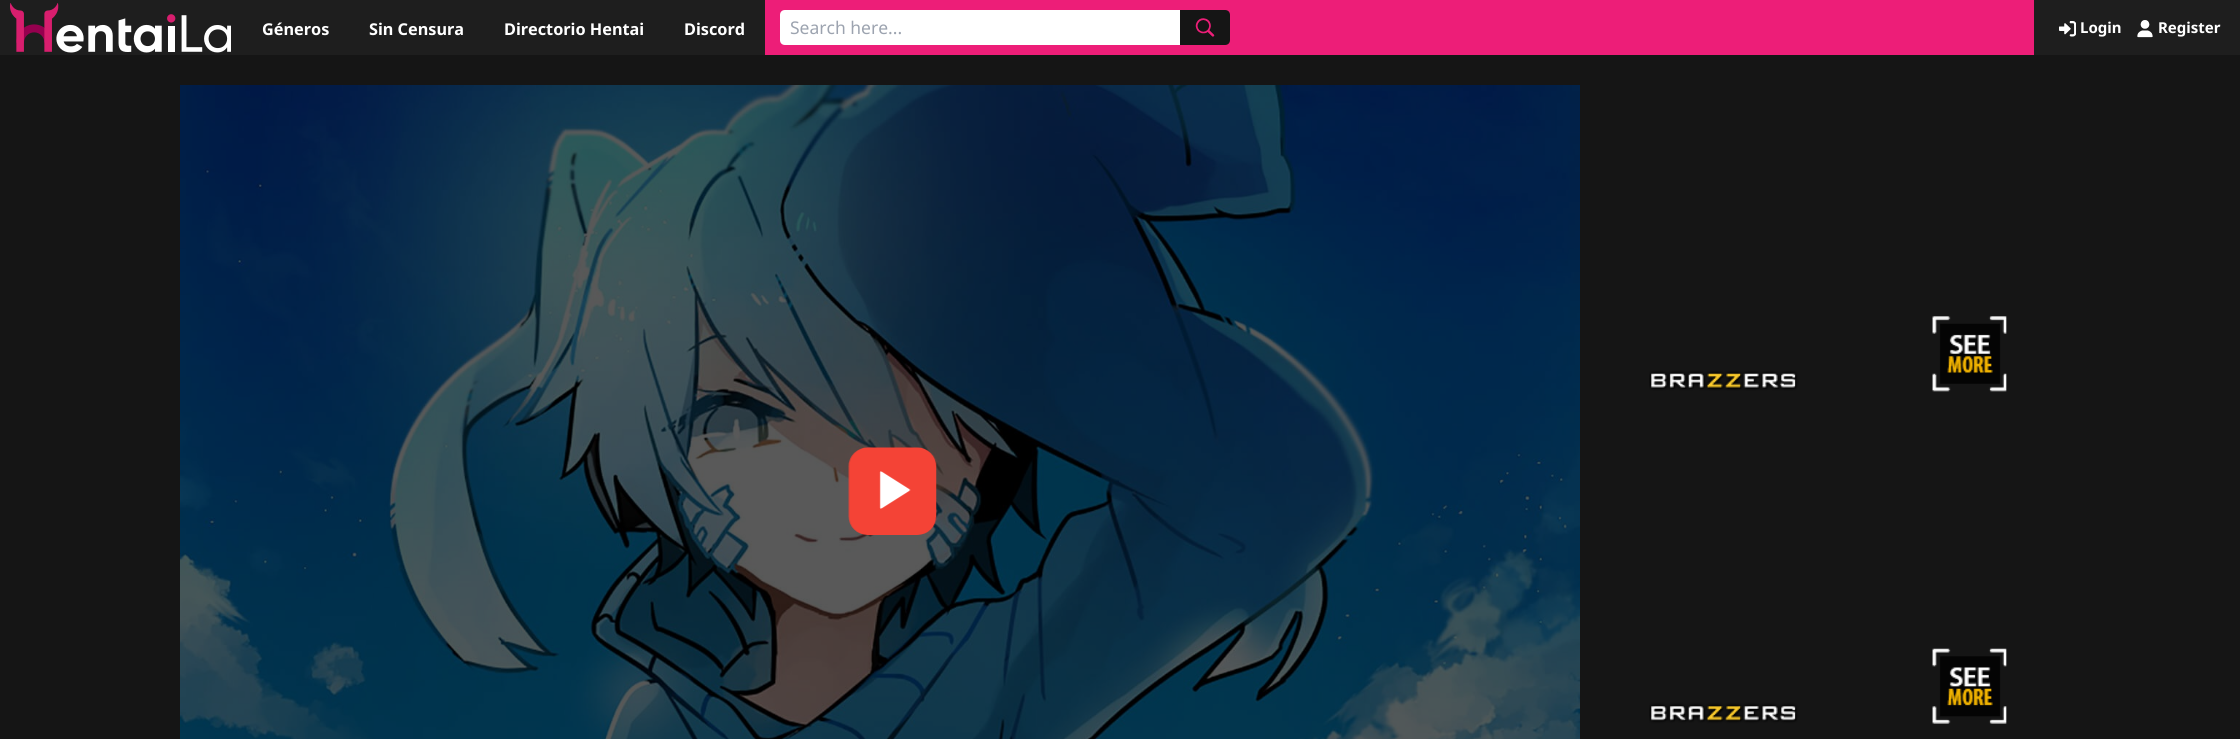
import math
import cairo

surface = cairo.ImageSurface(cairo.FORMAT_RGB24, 2240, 739)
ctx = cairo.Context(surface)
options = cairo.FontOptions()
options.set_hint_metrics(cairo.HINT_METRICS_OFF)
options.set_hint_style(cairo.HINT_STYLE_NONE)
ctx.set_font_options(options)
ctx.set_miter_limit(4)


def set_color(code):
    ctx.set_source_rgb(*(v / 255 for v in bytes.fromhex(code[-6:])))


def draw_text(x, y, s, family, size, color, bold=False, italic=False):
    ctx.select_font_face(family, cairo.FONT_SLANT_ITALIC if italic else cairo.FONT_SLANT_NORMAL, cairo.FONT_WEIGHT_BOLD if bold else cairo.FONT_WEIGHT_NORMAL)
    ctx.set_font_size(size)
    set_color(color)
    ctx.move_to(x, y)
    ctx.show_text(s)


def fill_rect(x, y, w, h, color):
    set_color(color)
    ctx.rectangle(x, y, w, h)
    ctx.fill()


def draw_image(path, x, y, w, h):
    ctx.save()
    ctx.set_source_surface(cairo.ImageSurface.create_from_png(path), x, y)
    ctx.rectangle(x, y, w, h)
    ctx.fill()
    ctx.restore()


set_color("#151515")
ctx.paint()
fill_rect(0, 0, 2240, 55, "#1e1e1e")
draw_image("assets/img1.png", 10, 3, 221, 50)
draw_text(262, 35, "Géneros", "Noto Sans", 16.25, "#ffffff", bold=True)
draw_text(369, 35, "Sin Censura", "Noto Sans", 16.25, "#ffffff", bold=True)
draw_text(504, 35, "Directorio Hentai", "Noto Sans", 16.25, "#ffffff", bold=True)
draw_text(684, 35, "Discord", "Noto Sans", 16.25, "#ffffff", bold=True)
fill_rect(765, 0, 1269, 55, "#ed1e78")
set_color("#ffffff")
ctx.new_path()
ctx.move_to(785, 10)
ctx.line_to(1180, 10)
ctx.line_to(1180, 45)
ctx.line_to(785, 45)
ctx.curve_to(782, 45, 780, 43, 780, 40)
ctx.line_to(780, 15)
ctx.curve_to(780, 12, 782, 10, 785, 10)
ctx.close_path()
ctx.fill()
draw_text(790, 34, "Search here...", "Noto Sans", 17.5, "#9ca3af")
set_color("#151515")
ctx.new_path()
ctx.move_to(1180, 10)
ctx.line_to(1225, 10)
ctx.curve_to(1228, 10, 1230, 12, 1230, 15)
ctx.line_to(1230, 40)
ctx.curve_to(1230, 43, 1228, 45, 1225, 45)
ctx.line_to(1180, 45)
ctx.close_path()
ctx.fill()
draw_image("assets/img2.png", 1195, 18, 20, 19)
draw_image("assets/img3.png", 2059, 21, 17, 16)
draw_text(2080, 33, "Login", "Noto Sans", 15, "#ffffff", bold=True)
draw_image("assets/img4.png", 2137, 20, 16, 18)
draw_text(2158, 33, "Register", "Noto Sans", 15, "#ffffff", bold=True)
draw_image("assets/img5.png", 180, 85, 1400, 654)
draw_image("assets/img6.png", 1649, 316, 358, 76)
draw_image("assets/img7.png", 1649, 648, 358, 76)
surface.write_to_png("output.png")
